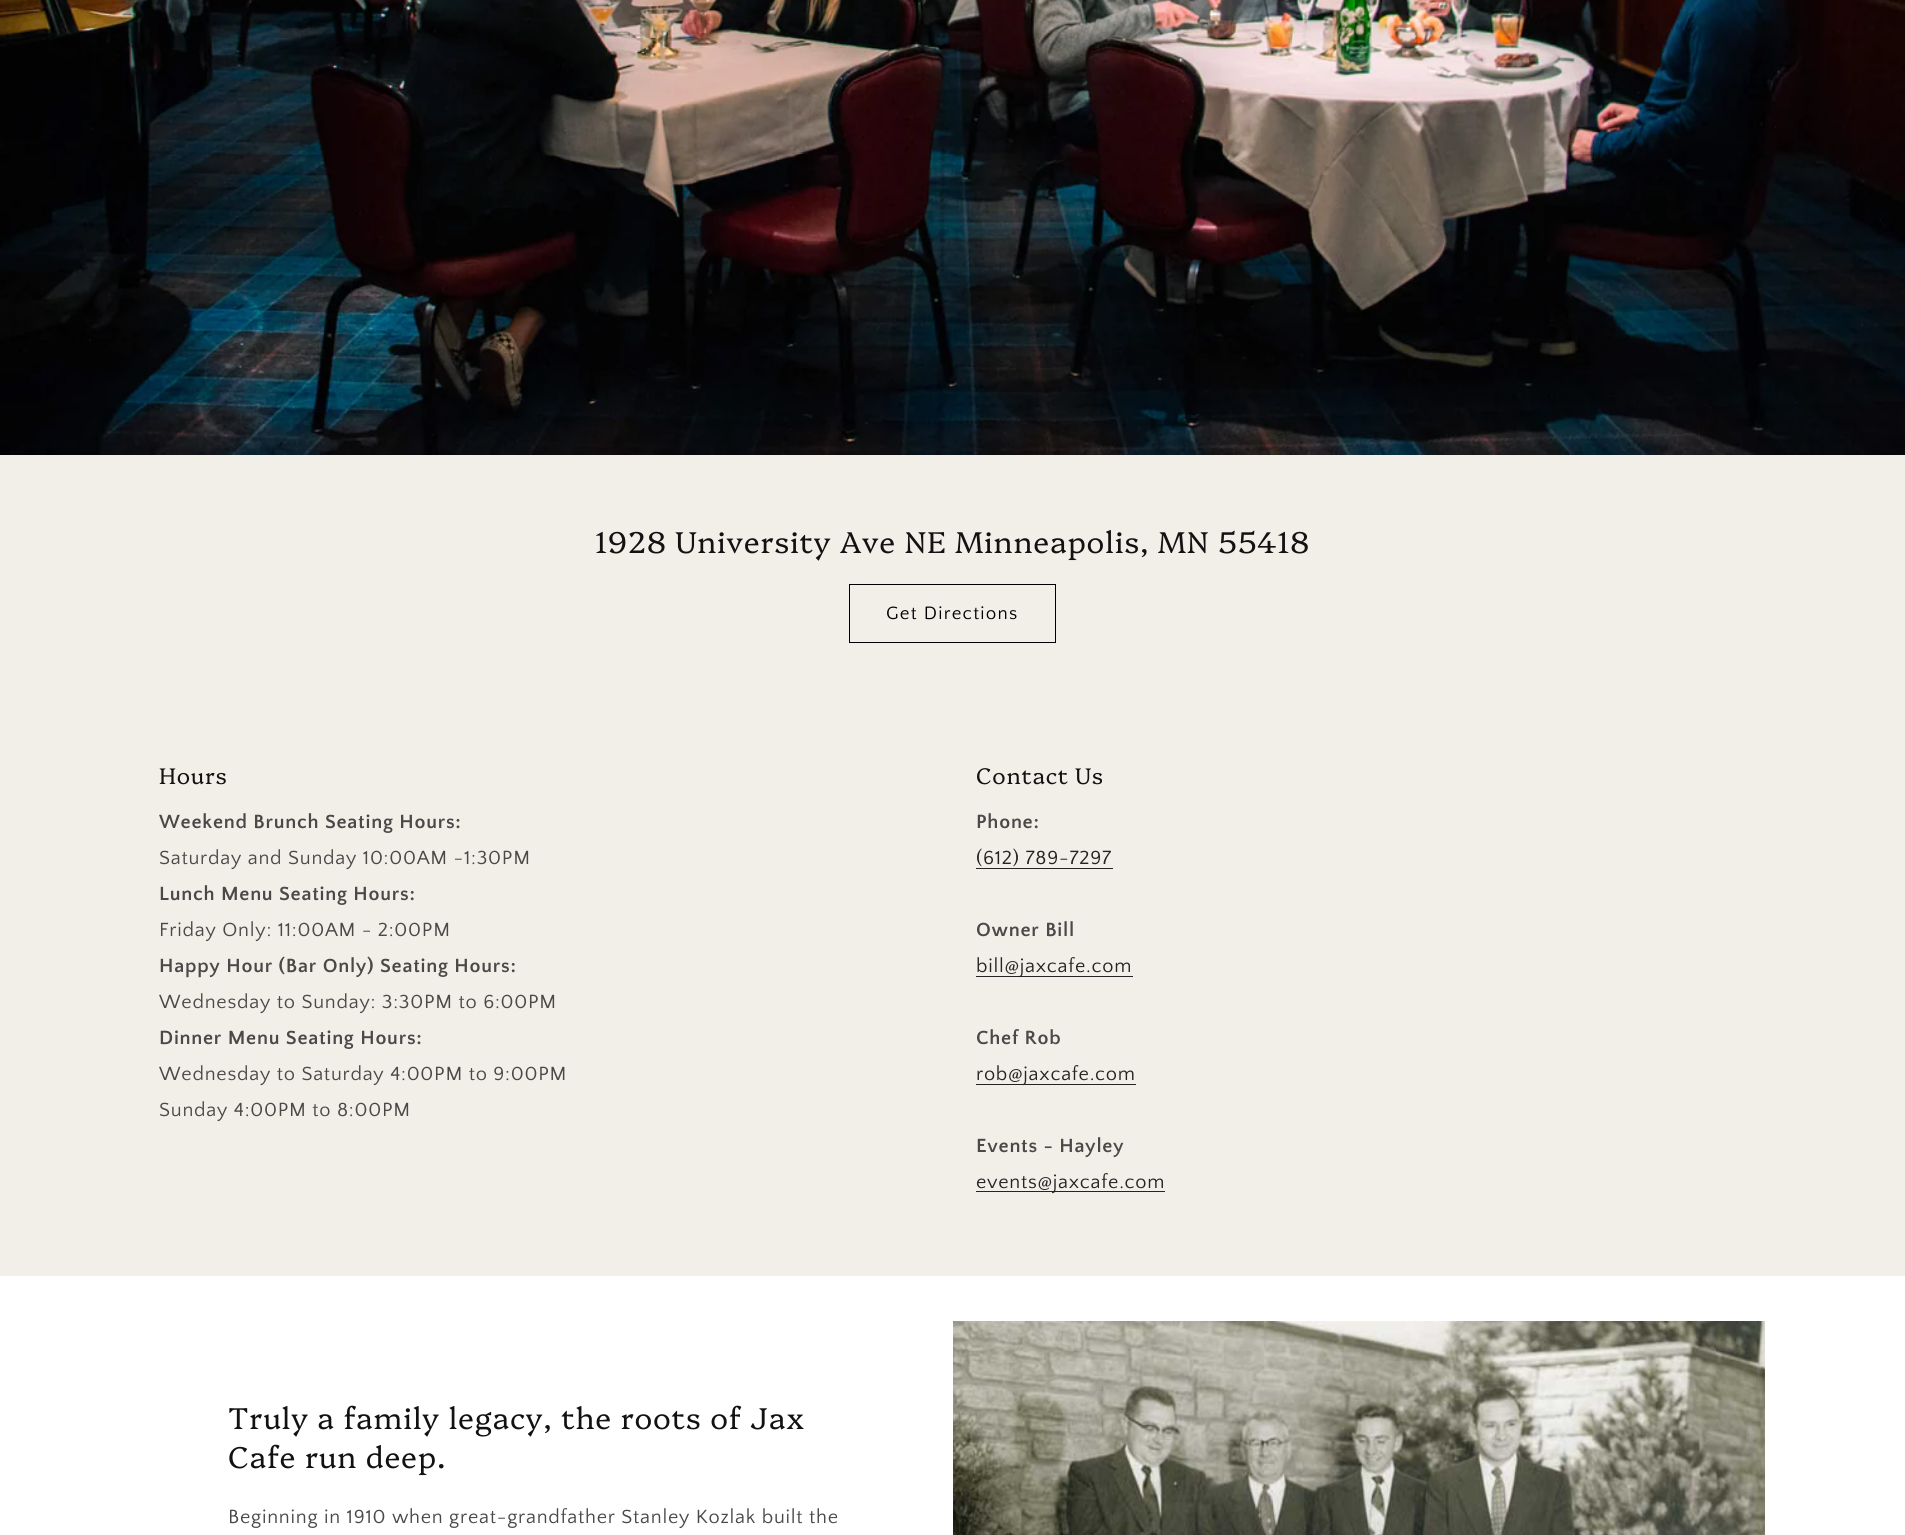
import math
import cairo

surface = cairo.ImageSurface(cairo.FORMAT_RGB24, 1905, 1535)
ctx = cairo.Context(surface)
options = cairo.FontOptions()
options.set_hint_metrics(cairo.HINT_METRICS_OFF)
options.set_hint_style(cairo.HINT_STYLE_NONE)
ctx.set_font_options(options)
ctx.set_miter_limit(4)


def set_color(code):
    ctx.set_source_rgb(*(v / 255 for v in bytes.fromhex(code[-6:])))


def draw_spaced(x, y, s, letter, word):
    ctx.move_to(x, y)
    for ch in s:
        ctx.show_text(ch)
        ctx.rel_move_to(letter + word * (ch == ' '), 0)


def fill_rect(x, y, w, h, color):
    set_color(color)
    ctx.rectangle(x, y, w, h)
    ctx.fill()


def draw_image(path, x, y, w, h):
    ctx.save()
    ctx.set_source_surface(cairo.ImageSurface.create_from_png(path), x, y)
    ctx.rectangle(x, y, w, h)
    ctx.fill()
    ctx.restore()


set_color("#ffffff")
ctx.paint()
draw_image("assets/img1.png", 0, 0, 1905, 455)
fill_rect(0, 455, 1905, 821, "#f2efe9")
ctx.select_font_face("Platypi Light")
ctx.set_font_size(30)
set_color("#121212")
draw_spaced(595, 553, "1928 University Ave NE Minneapolis, MN 55418", 0.75, 0)
ctx.rectangle(849.5, 584.5, 206, 58)
set_color("#000000")
ctx.set_line_width(1)
ctx.stroke()
ctx.select_font_face("Quattrocento Sans")
ctx.set_font_size(18.75)
draw_spaced(886, 619, "Get Directions", 1.25, 0)
ctx.select_font_face("Platypi Light")
ctx.set_font_size(22.5)
set_color("#121212")
draw_spaced(159, 784, "Hours", 0.75, 0)
ctx.select_font_face("Quattrocento Sans", cairo.FONT_SLANT_NORMAL, cairo.FONT_WEIGHT_BOLD)
ctx.set_font_size(20)
set_color("#4a4948")
draw_spaced(159, 828, "Weekend Brunch Seating Hours:", 0.75, 0)
ctx.select_font_face("Quattrocento Sans")
draw_spaced(159, 864, "Saturday and Sunday 10:00AM -1:30PM", 0.75, 0)
ctx.select_font_face("Quattrocento Sans", cairo.FONT_SLANT_NORMAL, cairo.FONT_WEIGHT_BOLD)
draw_spaced(159, 900, "Lunch Menu Seating Hours:", 0.75, 0)
ctx.select_font_face("Quattrocento Sans")
draw_spaced(159, 936, "Friday Only: 11:00AM - 2:00PM", 0.75, 0)
ctx.select_font_face("Quattrocento Sans", cairo.FONT_SLANT_NORMAL, cairo.FONT_WEIGHT_BOLD)
draw_spaced(159, 972, "Happy Hour (Bar Only) Seating Hours:", 0.75, 0)
ctx.select_font_face("Quattrocento Sans")
draw_spaced(159, 1008, "Wednesday to Sunday: 3:30PM to 6:00PM", 0.75, 0)
ctx.select_font_face("Quattrocento Sans", cairo.FONT_SLANT_NORMAL, cairo.FONT_WEIGHT_BOLD)
draw_spaced(159, 1044, "Dinner Menu Seating Hours:", 0.75, 0)
ctx.select_font_face("Quattrocento Sans")
draw_spaced(159, 1080, "Wednesday to Saturday 4:00PM to 9:00PM", 0.75, 0)
draw_spaced(159, 1116, "Sunday 4:00PM to 8:00PM", 0.75, 0)
ctx.select_font_face("Platypi Light")
ctx.set_font_size(22.5)
set_color("#121212")
draw_spaced(976, 784, "Contact Us", 0.75, 0)
ctx.select_font_face("Quattrocento Sans", cairo.FONT_SLANT_NORMAL, cairo.FONT_WEIGHT_BOLD)
ctx.set_font_size(20)
set_color("#4a4948")
draw_spaced(976, 828, "Phone:", 0.75, 0)
ctx.select_font_face("Quattrocento Sans")
set_color("#242423")
draw_spaced(976, 864, "(612) 789-7297", 0.75, 0)
fill_rect(976, 868, 137, 1, "#242423")
ctx.select_font_face("Quattrocento Sans", cairo.FONT_SLANT_NORMAL, cairo.FONT_WEIGHT_BOLD)
set_color("#4a4948")
draw_spaced(976, 936, "Owner Bill", 0.75, 0)
fill_rect(976, 976, 157, 1, "#242423")
ctx.select_font_face("Quattrocento Sans")
draw_spaced(976, 972, "bill@jaxcafe.com", 0.75, 0)
ctx.select_font_face("Quattrocento Sans", cairo.FONT_SLANT_NORMAL, cairo.FONT_WEIGHT_BOLD)
set_color("#4a4948")
draw_spaced(976, 1044, "Chef Rob", 0.75, 0)
fill_rect(976, 1084, 160, 1, "#242423")
ctx.select_font_face("Quattrocento Sans")
draw_spaced(976, 1080, "rob@jaxcafe.com", 0.75, 0)
ctx.select_font_face("Quattrocento Sans", cairo.FONT_SLANT_NORMAL, cairo.FONT_WEIGHT_BOLD)
set_color("#4a4948")
draw_spaced(976, 1152, "Events - Hayley", 0.75, 0)
fill_rect(976, 1191, 189, 1, "#242423")
ctx.select_font_face("Quattrocento Sans")
draw_spaced(976, 1188, "events@jaxcafe.com", 0.75, 0)
ctx.select_font_face("Platypi Light")
ctx.set_font_size(30)
set_color("#121212")
draw_spaced(228, 1429, "Truly a family legacy, the roots of Jax", 0.75, 0)
draw_spaced(228, 1468, "Cafe run deep.", 0.75, 0)
ctx.select_font_face("Quattrocento Sans")
ctx.set_font_size(20)
set_color("#4a4948")
draw_spaced(228, 1523, "Beginning in 1910 when great-grandfather Stanley Kozlak built the", 0.75, 0)
draw_image("assets/img2.png", 953, 1321, 812, 214)
surface.write_to_png("output.png")
